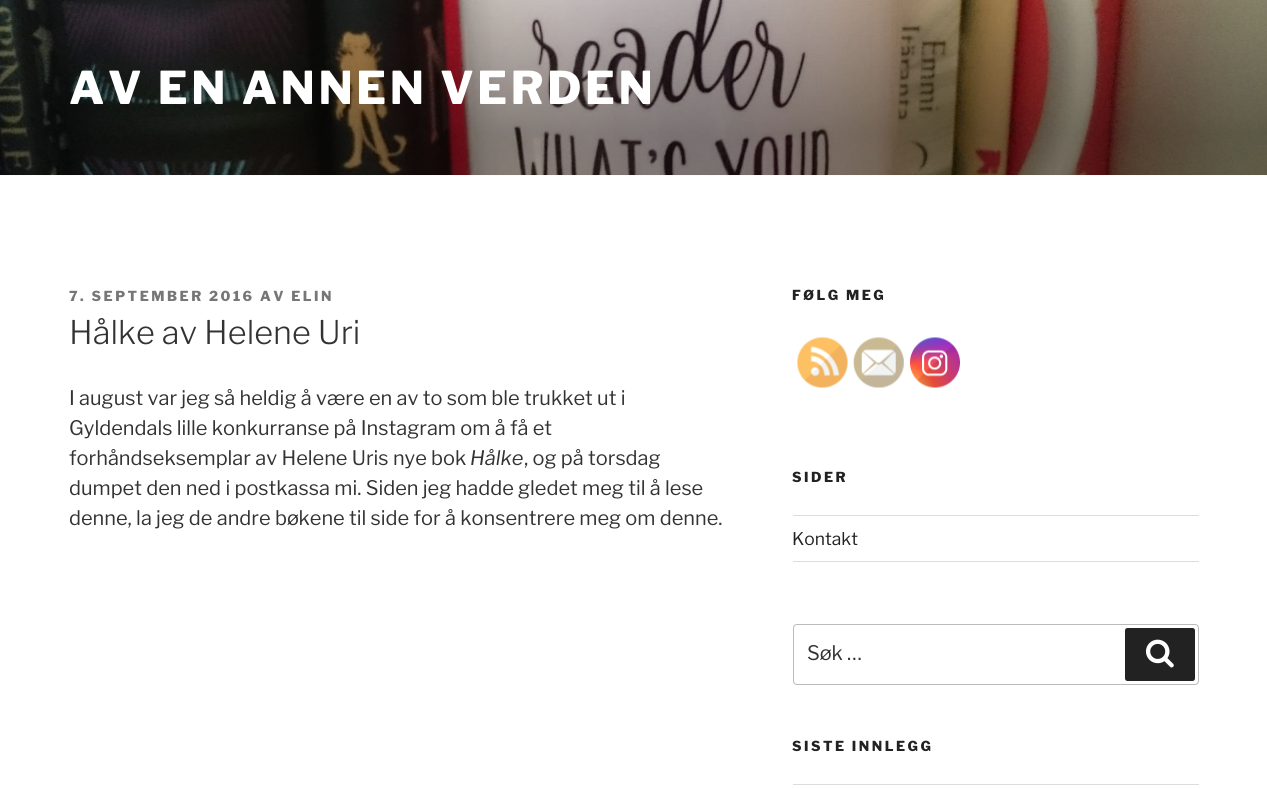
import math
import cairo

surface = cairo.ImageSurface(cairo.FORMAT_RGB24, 1267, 788)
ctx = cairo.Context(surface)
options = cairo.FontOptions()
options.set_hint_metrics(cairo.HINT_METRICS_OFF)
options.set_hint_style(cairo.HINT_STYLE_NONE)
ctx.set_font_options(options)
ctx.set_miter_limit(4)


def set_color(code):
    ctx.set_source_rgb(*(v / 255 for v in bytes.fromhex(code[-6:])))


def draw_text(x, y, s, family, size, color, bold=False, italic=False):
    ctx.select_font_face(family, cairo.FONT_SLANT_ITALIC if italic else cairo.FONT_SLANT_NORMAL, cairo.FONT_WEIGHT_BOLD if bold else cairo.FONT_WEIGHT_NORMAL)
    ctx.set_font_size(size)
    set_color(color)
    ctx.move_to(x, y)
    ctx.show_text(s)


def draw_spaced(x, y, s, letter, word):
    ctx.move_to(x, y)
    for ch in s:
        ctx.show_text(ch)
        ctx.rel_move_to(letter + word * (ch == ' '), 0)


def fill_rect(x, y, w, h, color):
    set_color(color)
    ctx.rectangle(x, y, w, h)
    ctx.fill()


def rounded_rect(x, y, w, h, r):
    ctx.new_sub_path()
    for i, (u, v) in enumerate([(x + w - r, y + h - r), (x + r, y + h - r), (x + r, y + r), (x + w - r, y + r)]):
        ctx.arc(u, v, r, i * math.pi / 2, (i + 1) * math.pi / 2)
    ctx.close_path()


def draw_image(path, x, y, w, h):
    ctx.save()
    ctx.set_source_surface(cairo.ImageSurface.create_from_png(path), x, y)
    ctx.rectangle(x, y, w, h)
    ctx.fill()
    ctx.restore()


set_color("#ffffff")
ctx.paint()
fill_rect(0, 175, 1267, 1, "#fafafa")
draw_image("assets/img1.png", 0, 0, 1267, 175)
ctx.select_font_face("Libre Franklin Thin")
ctx.set_font_size(45)
set_color("#ffffff")
draw_spaced(69, 104, "AV EN ANNEN VERDEN", 3.6, 0)
ctx.set_font_size(13.75)
set_color("#767676")
draw_spaced(69, 301, "7. SEPTEMBER 2016 AV ELIN", 2.5, 0)
draw_text(69, 344, "Hålke av Helene Uri", "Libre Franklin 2 Thin", 32.5, "#333333")
draw_text(69, 405, "I august var jeg så heldig å være en av to som ble trukket ut i", "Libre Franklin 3 Thin", 20, "#333333")
draw_text(69, 435, "Gyldendals lille konkurranse på Instagram om å få et", "Libre Franklin 3 Thin", 20, "#333333")
draw_text(69, 465, "forhåndseksemplar av Helene Uris nye bok", "Libre Franklin 3 Thin", 20, "#333333")
draw_text(470, 465, "Hålke", "Libre Franklin Thin", 20, "#333333", italic=True)
draw_text(524, 465, ", og på torsdag", "Libre Franklin 3 Thin", 20, "#333333")
draw_text(69, 495, "dumpet den ned i postkassa mi. Siden jeg hadde gledet meg til å lese", "Libre Franklin 3 Thin", 20, "#333333")
draw_text(69, 525, "denne, la jeg de andre bøkene til side for å konsentrere meg om denne.", "Libre Franklin 3 Thin", 20, "#333333")
ctx.select_font_face("Libre Franklin Thin")
ctx.set_font_size(13.75)
set_color("#222222")
draw_spaced(792, 300, "FØLG MEG", 2.5, 0)
draw_image("assets/img2.png", 797, 337, 51, 51)
draw_image("assets/img3.png", 853, 337, 51, 51)
draw_image("assets/img4.png", 910, 337, 50, 51)
draw_spaced(792, 482, "SIDER", 2.5, 0)
fill_rect(793, 515, 406, 1, "#dddddd")
fill_rect(793, 561, 406, 1, "#dddddd")
draw_text(792, 545, "Kontakt", "Libre Franklin 3 Thin", 17.5, "#222222")
rounded_rect(793.5, 624.5, 405, 60, 3.5)
set_color("#bbbbbb")
ctx.set_line_width(1)
ctx.stroke()
draw_text(807, 660, "Søk …", "Libre Franklin 3 Thin", 20, "#333333")
set_color("#222222")
rounded_rect(1125, 628, 70, 53, 2.5)
ctx.fill()
draw_image("assets/img5.png", 1145, 639, 29, 29)
ctx.select_font_face("Libre Franklin Thin")
ctx.set_font_size(13.75)
draw_spaced(792, 751, "SISTE INNLEGG", 2.5, 0)
fill_rect(793, 784, 406, 1, "#dddddd")
surface.write_to_png("output.png")
